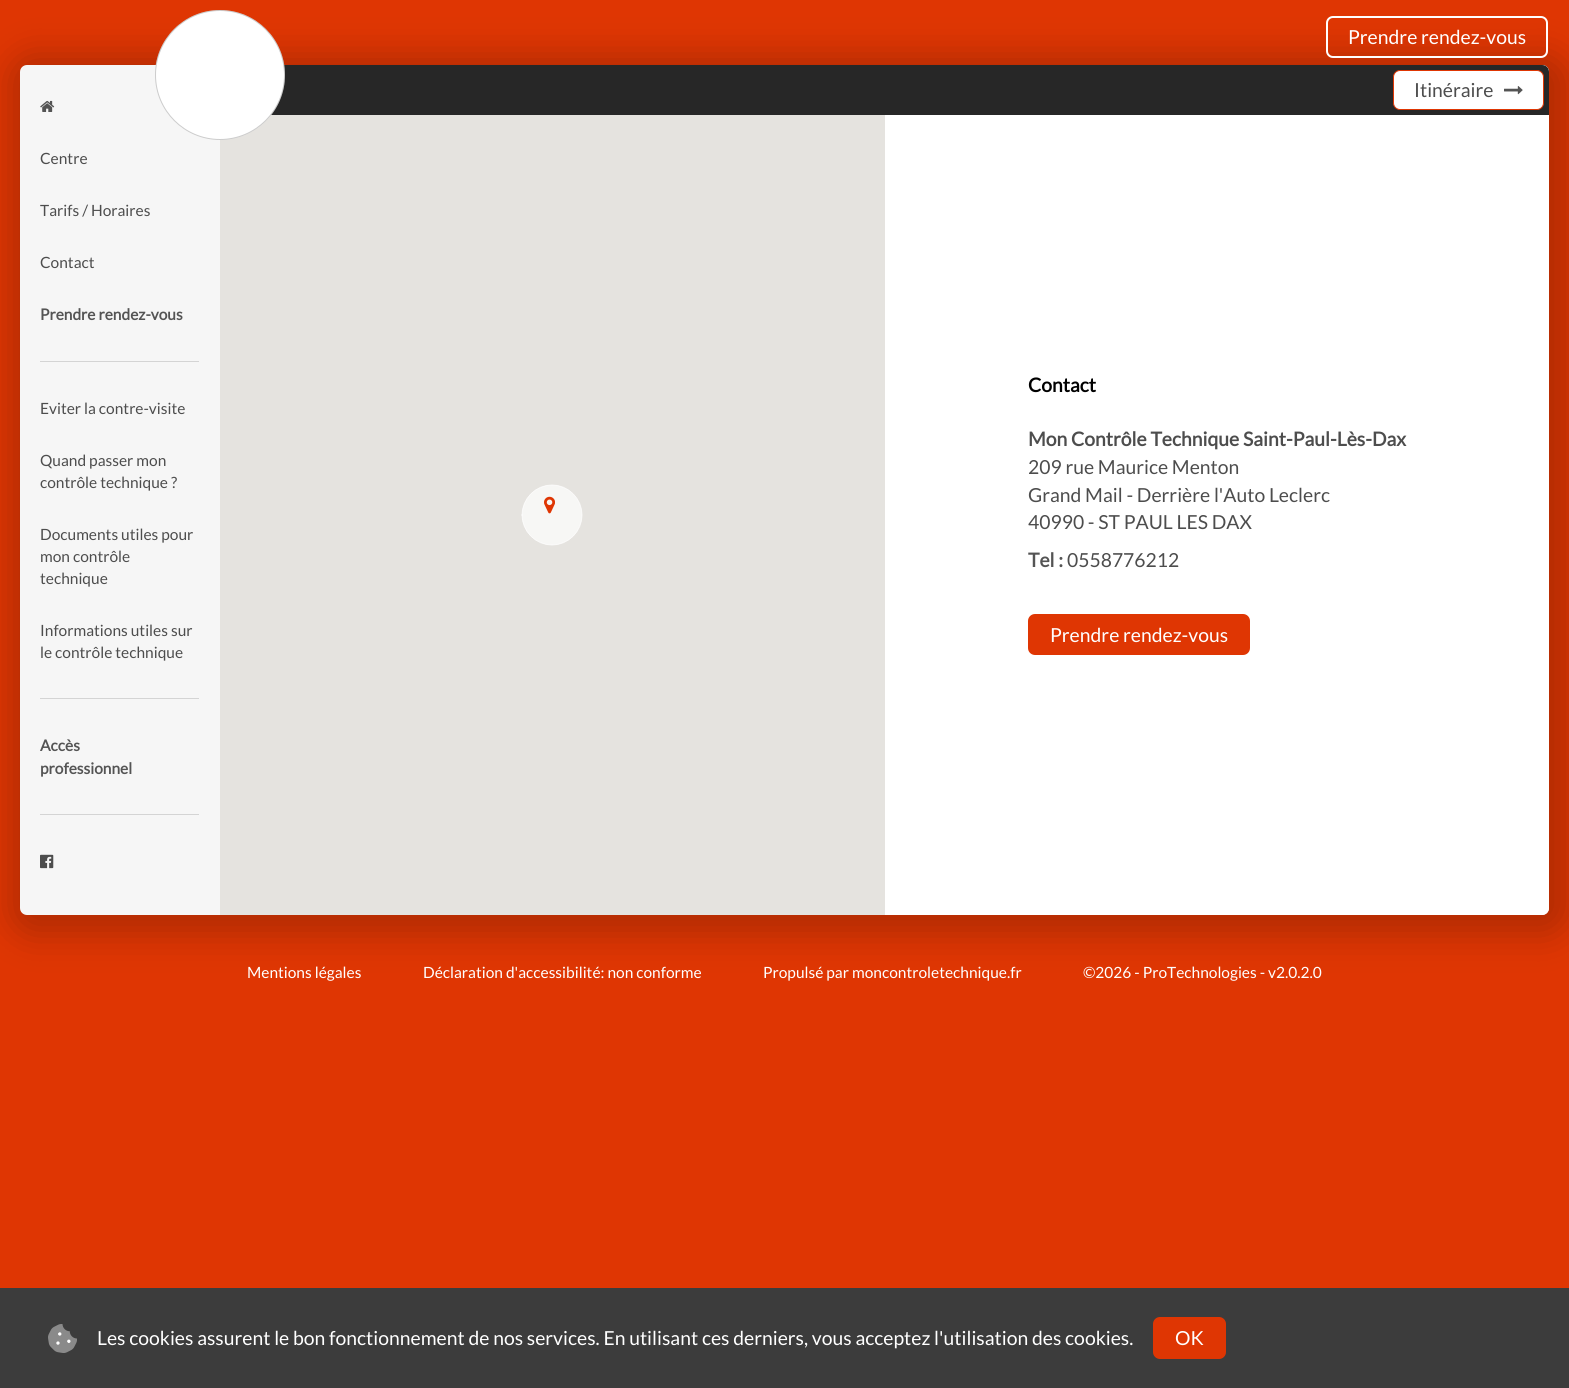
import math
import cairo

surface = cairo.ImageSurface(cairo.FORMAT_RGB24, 1569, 1388)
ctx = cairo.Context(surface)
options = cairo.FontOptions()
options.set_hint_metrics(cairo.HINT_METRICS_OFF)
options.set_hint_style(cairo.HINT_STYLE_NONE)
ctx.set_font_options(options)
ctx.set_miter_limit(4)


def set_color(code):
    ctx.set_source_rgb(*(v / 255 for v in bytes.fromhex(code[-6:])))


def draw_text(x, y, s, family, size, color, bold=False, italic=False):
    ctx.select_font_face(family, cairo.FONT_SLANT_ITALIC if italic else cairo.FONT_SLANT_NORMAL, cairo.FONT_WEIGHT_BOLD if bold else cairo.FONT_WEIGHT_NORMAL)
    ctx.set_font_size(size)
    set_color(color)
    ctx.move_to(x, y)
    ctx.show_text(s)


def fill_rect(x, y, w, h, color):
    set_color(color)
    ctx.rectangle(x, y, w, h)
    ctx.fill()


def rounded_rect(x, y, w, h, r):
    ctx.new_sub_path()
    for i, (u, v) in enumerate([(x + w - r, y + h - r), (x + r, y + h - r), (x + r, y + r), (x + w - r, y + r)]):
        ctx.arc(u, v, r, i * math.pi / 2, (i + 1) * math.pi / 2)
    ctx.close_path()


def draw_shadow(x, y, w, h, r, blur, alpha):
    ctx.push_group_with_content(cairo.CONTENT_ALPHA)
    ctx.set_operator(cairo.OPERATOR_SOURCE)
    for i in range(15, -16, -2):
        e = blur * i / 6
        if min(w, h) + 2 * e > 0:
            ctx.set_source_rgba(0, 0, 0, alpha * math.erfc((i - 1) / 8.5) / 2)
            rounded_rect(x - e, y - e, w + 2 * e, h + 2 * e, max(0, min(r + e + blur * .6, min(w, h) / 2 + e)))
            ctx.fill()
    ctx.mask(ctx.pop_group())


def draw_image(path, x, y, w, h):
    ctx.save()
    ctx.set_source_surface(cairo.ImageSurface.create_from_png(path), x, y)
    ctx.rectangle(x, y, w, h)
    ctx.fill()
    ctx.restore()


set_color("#df3603")
ctx.paint()
set_color("#000000")
draw_shadow(10, 55, 1559, 880, 22, 17.5, 0.2)
set_color("#f6f6f6")
rounded_rect(20, 65, 1529, 850, 7)
ctx.fill()
set_color("#ffffff")
ctx.new_path()
ctx.move_to(220, 65)
ctx.line_to(1542, 65)
ctx.curve_to(1546, 65, 1549, 68, 1549, 72)
ctx.line_to(1549, 908)
ctx.curve_to(1549, 912, 1546, 915, 1542, 915)
ctx.line_to(220, 915)
ctx.close_path()
ctx.fill()
set_color("#272727")
ctx.new_path()
ctx.move_to(220, 65)
ctx.line_to(1542, 65)
ctx.curve_to(1546, 65, 1549, 68, 1549, 72)
ctx.line_to(1549, 115)
ctx.line_to(220, 115)
ctx.close_path()
ctx.fill()
fill_rect(220, 115, 665, 800, "#e5e3df")
set_color("#ffffff")
ctx.arc(220, 75, 65, 0, 2 * math.pi)
ctx.fill()
ctx.arc(220, 75, 64.5, 0, 2 * math.pi)
ctx.set_source_rgba(0, 0, 0, 0.2)
ctx.set_line_width(1)
ctx.stroke()
rounded_rect(1327, 17, 220, 40, 6)
set_color("#ffffff")
ctx.set_line_width(2)
ctx.stroke()
draw_text(1348, 44, "Prendre rendez-vous", "Lato", 19.35, "#ffffff")
draw_image("assets/img1.png", 40, 100, 15, 12)
draw_text(40, 164, "Centre", "Lato", 15.5, "#4d4d4d")
draw_text(40, 216, "Tarifs / Horaires", "Lato", 15.5, "#4d4d4d")
draw_text(40, 268, "Contact", "Lato", 15.5, "#4d4d4d")
draw_text(40, 320, "Prendre rendez-vous", "Lato", 15.5, "#545454", bold=True)
fill_rect(40, 361, 159, 1, "#d4d4d4")
draw_text(40, 414, "Eviter la contre-visite", "Lato", 15.5, "#4d4d4d")
draw_text(40, 466, "Quand passer mon", "Lato", 15.5, "#4d4d4d")
draw_text(40, 488, "contrôle technique ?", "Lato", 15.5, "#4d4d4d")
draw_text(40, 540, "Documents utiles pour", "Lato", 15.5, "#4d4d4d")
draw_text(40, 562, "mon contrôle", "Lato", 15.5, "#4d4d4d")
draw_text(40, 584, "technique", "Lato", 15.5, "#4d4d4d")
draw_text(40, 636, "Informations utiles sur", "Lato", 15.5, "#4d4d4d")
draw_text(40, 658, "le contrôle technique", "Lato", 15.5, "#4d4d4d")
fill_rect(40, 698, 159, 1, "#d4d4d4")
draw_text(40, 751, "Accès", "Lato", 15.5, "#545454", bold=True)
draw_text(40, 774, "professionnel", "Lato", 15.5, "#545454", bold=True)
fill_rect(40, 814, 159, 1, "#d4d4d4")
draw_image("assets/img2.png", 40, 854, 14, 15)
set_color("#ffffff")
rounded_rect(1393.5, 70.5, 150, 39, 6.5)
ctx.fill_preserve()
set_color("#df3603")
ctx.set_line_width(1)
ctx.stroke()
draw_text(1414, 97, "Itinéraire", "Lato", 19.35, "#4d4d4d")
draw_image("assets/img3.png", 1504, 86, 19, 9)
draw_image("assets/img4.png", 521, 484, 62, 62)
draw_image("assets/img5.png", 544, 496, 11, 18)
draw_text(1028, 392, "Contact", "Lato", 19.35, "#000000", bold=True)
draw_text(1028, 446, "Mon Contrôle Technique Saint-Paul-Lès-Dax", "Lato", 19.35, "#4d4d4d", bold=True)
draw_text(1028, 474, "209 rue Maurice Menton", "Lato", 19.35, "#4d4d4d")
draw_text(1028, 502, "Grand Mail - Derrière l'Auto Leclerc", "Lato", 19.35, "#4d4d4d")
draw_text(1028, 529, "40990 - ST PAUL LES DAX", "Lato", 19.35, "#4d4d4d")
draw_text(1028, 567, "Tel :", "Lato", 19.35, "#545454", bold=True)
draw_text(1067, 567, "0558776212", "Lato", 19.35, "#4d4d4d")
set_color("#df3603")
rounded_rect(1029, 615, 220, 39, 6)
ctx.fill_preserve()
ctx.set_line_width(2)
ctx.stroke()
draw_text(1050, 642, "Prendre rendez-vous", "Lato", 19.35, "#ffffff")
draw_text(247, 978, "Mentions légales", "Lato", 15.5, "#ffffff")
draw_text(423, 978, "Déclaration d'accessibilité: non conforme", "Lato", 15.5, "#ffffff")
draw_text(763, 978, "Propulsé par moncontroletechnique.fr", "Lato", 15.5, "#ffffff")
draw_text(1083, 978, "©2026 - ProTechnologies - v2.0.2.0", "Lato", 15.5, "#ffffff")
fill_rect(0, 1288, 1569, 100, "#3c3c3c")
draw_image("assets/img6.png", 48, 1324, 29, 29)
draw_text(97, 1345, "Les cookies assurent le bon fonctionnement de nos services. En utilisant ces derniers, vous acceptez l'utilisation des cookies.", "Lato", 19.35, "#ffffff")
set_color("#df3603")
rounded_rect(1154, 1318, 71, 40, 6)
ctx.fill_preserve()
ctx.stroke()
draw_text(1175, 1345, "OK", "Lato", 19.35, "#ffffff")
surface.write_to_png("output.png")
